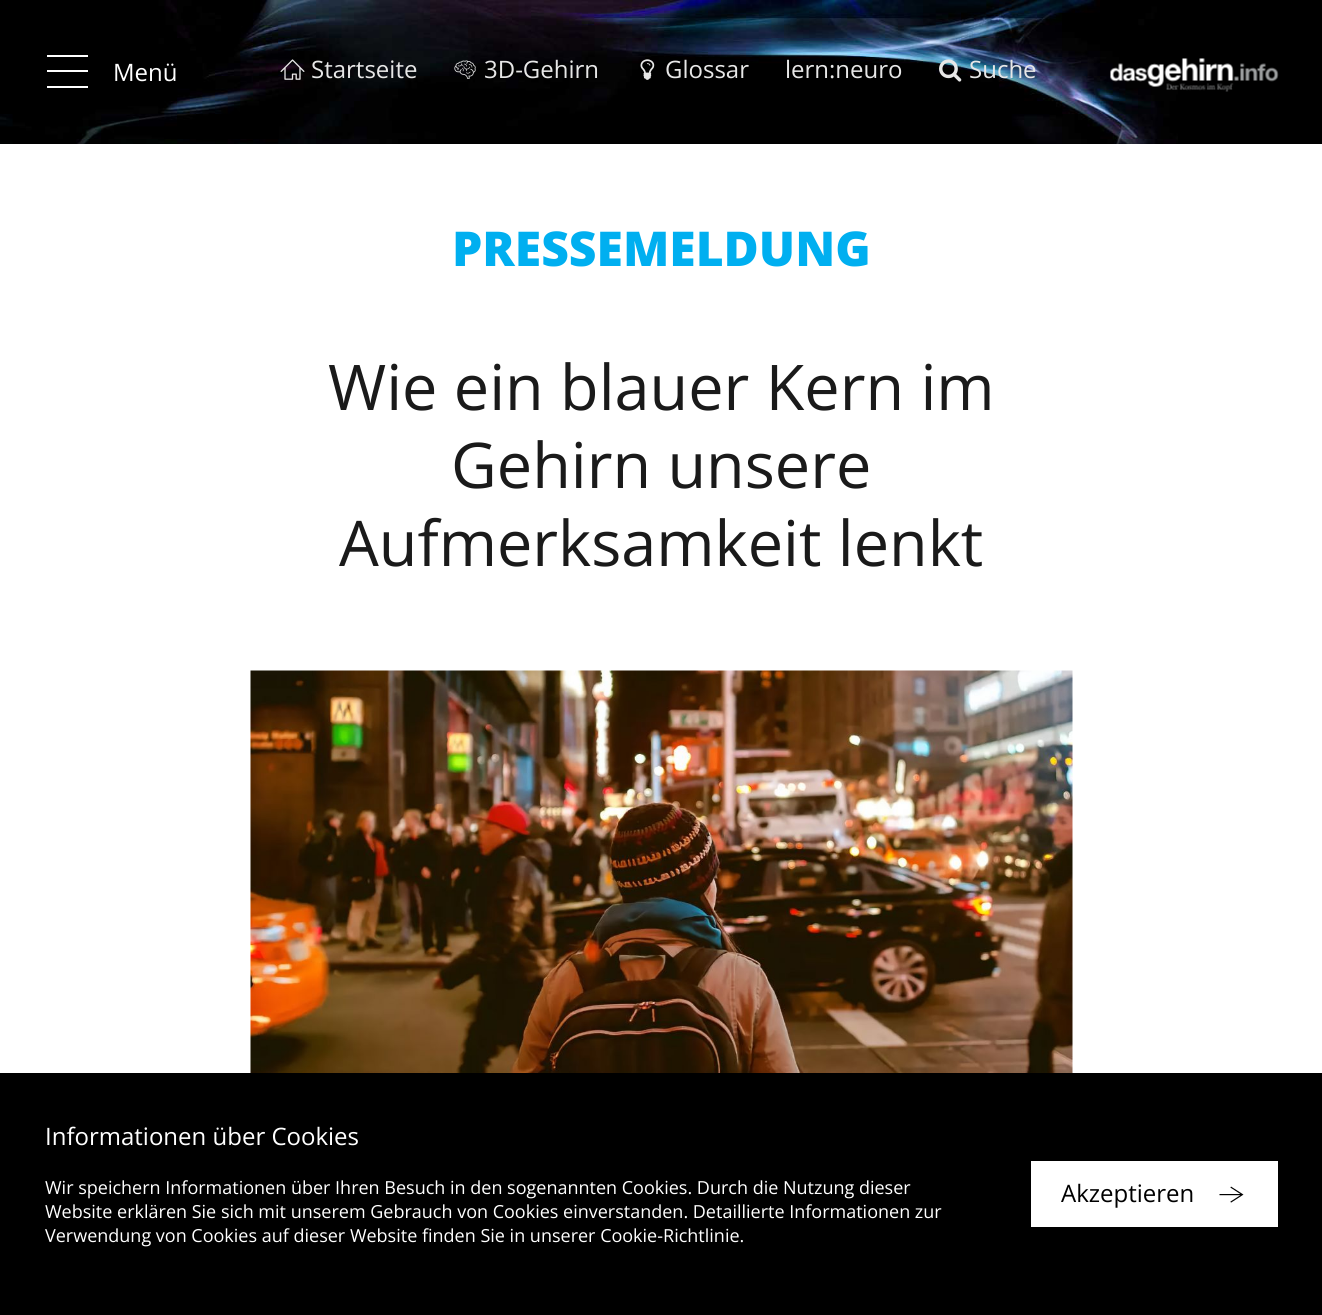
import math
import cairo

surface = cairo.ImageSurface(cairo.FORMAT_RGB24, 1322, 1315)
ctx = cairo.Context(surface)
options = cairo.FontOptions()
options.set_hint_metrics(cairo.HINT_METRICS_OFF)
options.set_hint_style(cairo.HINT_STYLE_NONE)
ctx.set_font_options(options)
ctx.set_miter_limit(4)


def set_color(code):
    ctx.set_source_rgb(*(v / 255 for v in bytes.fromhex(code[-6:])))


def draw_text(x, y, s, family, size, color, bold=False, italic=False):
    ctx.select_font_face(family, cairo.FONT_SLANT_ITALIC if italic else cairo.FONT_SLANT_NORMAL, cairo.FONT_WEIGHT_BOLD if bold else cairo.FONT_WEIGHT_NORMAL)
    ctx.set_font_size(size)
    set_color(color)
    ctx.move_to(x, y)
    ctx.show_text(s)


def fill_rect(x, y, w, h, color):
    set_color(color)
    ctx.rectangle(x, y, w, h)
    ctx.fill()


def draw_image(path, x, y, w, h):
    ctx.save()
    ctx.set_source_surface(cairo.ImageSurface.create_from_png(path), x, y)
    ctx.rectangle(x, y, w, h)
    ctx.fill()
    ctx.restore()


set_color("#ffffff")
ctx.paint()
fill_rect(0, 0, 1322, 144, "#000000")
draw_image("assets/img1.png", 0, 0, 1178, 144)
set_color("#ffffff")
ctx.new_path()
ctx.move_to(88, 86)
ctx.line_to(47, 86)
ctx.line_to(47, 88)
ctx.line_to(88, 88)
ctx.close_path()
ctx.move_to(88, 55)
ctx.line_to(47, 55)
ctx.line_to(47, 57)
ctx.line_to(88, 57)
ctx.close_path()
ctx.move_to(88, 70)
ctx.line_to(47, 70)
ctx.line_to(47, 72)
ctx.line_to(88, 72)
ctx.close_path()
ctx.fill()
draw_text(113, 81, "Menü", "Open Sans", 24, "#ffffff")
draw_image("assets/img2.png", 280, 59, 25, 21)
draw_text(311, 78, "Startseite", "Open Sans", 24, "#e7e7e7")
draw_image("assets/img3.png", 454, 60, 22, 19)
draw_text(484, 78, "3D-Gehirn", "Open Sans", 24, "#e7e7e7")
draw_image("assets/img4.png", 640, 59, 15, 21)
draw_text(665, 78, "Glossar", "Open Sans", 24, "#e7e7e7")
draw_text(785, 78, "lern:neuro", "Open Sans", 24, "#e7e7e7")
draw_image("assets/img5.png", 939, 59, 23, 23)
draw_text(969, 78, "Suche", "Open Sans", 24, "#e7e7e7")
draw_image("assets/img6.png", 1110, 58, 169, 34)
draw_text(452, 266, "PRESSEMELDUNG", "Open Sans ExtraBold", 48, "#00aff0")
draw_text(328, 410, "Wie ein blauer Kern im", "Open Sans", 63, "#1a1a1a")
draw_text(451, 488, "Gehirn unsere", "Open Sans", 63, "#1a1a1a")
draw_text(339, 566, "Aufmerksamkeit lenkt", "Open Sans", 63, "#1a1a1a")
draw_image("assets/img7.png", 250, 670, 823, 403)
fill_rect(0, 1073, 1322, 242, "#000000")
draw_text(45, 1145, "Informationen über Cookies", "Open Sans", 24, "#ffffff")
draw_text(45, 1194, "Wir speichern Informationen über Ihren Besuch in den sogenannten Cookies. Durch die Nutzung dieser", "Open Sans", 18, "#ffffff")
draw_text(45, 1218, "Website erklären Sie sich mit unserem Gebrauch von Cookies einverstanden. Detaillierte Informationen zur", "Open Sans", 18, "#ffffff")
draw_text(45, 1242, "Verwendung von Cookies auf dieser Website finden Sie in unserer Cookie-Richtlinie.", "Open Sans", 18, "#ffffff")
fill_rect(1031, 1161, 247, 66, "#ffffff")
draw_text(1061, 1202, "Akzeptieren", "Open Sans", 24, "#000000")
draw_image("assets/img8.png", 1219, 1186, 25, 17)
surface.write_to_png("output.png")
